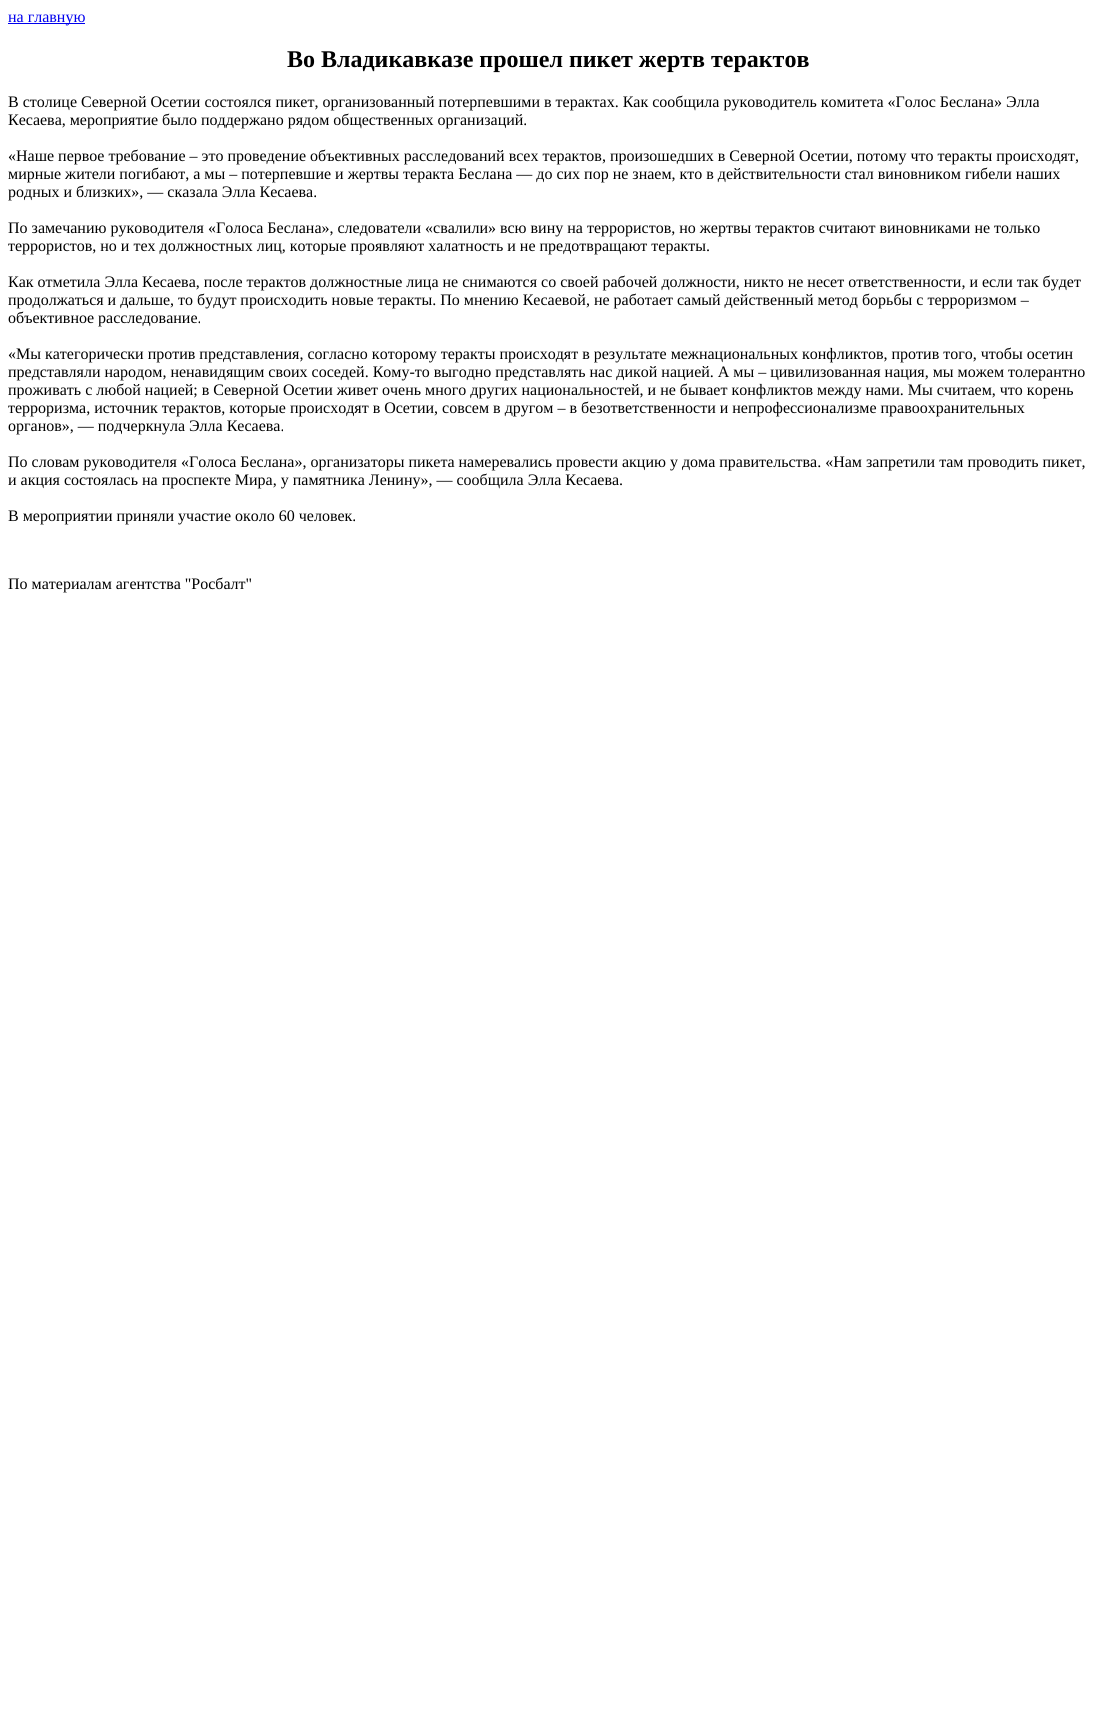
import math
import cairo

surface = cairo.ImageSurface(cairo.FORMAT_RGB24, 1097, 1721)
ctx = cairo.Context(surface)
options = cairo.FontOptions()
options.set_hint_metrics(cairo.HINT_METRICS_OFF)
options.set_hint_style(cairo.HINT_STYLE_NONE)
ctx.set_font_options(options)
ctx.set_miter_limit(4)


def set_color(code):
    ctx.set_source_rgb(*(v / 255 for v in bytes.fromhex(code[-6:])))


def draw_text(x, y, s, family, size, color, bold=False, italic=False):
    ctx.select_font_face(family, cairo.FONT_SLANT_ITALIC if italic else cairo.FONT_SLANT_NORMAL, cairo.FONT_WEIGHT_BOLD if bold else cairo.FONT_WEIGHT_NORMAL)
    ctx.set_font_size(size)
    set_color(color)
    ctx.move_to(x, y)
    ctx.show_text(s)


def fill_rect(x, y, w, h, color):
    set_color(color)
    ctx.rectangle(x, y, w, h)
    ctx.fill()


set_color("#ffffff")
ctx.paint()
fill_rect(8, 23, 77, 1, "#0000ee")
draw_text(8, 22, "на главную", "Liberation Serif", 16, "#0000ee")
draw_text(287, 67, "Во Владикавказе прошел пикет жертв терактов", "Liberation Serif", 24, "#000000", bold=True)
draw_text(8, 107, "В столице Северной Осетии состоялся пикет, организованный потерпевшими в терактах. Как сообщила руководитель комитета «Голос Беслана» Элла", "Liberation Serif", 16, "#000000")
draw_text(8, 125, "Кесаева, мероприятие было поддержано рядом общественных организаций.", "Liberation Serif", 16, "#000000")
draw_text(8, 161, "«Наше первое требование – это проведение объективных расследований всех терактов, произошедших в Северной Осетии, потому что теракты происходят,", "Liberation Serif", 16, "#000000")
draw_text(8, 179, "мирные жители погибают, а мы – потерпевшие и жертвы теракта Беслана — до сих пор не знаем, кто в действительности стал виновником гибели наших", "Liberation Serif", 16, "#000000")
draw_text(8, 197, "родных и близких», — сказала Элла Кесаева.", "Liberation Serif", 16, "#000000")
draw_text(8, 233, "По замечанию руководителя «Голоса Беслана», следователи «свалили» всю вину на террористов, но жертвы терактов считают виновниками не только", "Liberation Serif", 16, "#000000")
draw_text(8, 251, "террористов, но и тех должностных лиц, которые проявляют халатность и не предотвращают теракты.", "Liberation Serif", 16, "#000000")
draw_text(8, 287, "Как отметила Элла Кесаева, после терактов должностные лица не снимаются со своей рабочей должности, никто не несет ответственности, и если так будет", "Liberation Serif", 16, "#000000")
draw_text(8, 305, "продолжаться и дальше, то будут происходить новые теракты. По мнению Кесаевой, не работает самый действенный метод борьбы с терроризмом –", "Liberation Serif", 16, "#000000")
draw_text(8, 323, "объективное расследование.", "Liberation Serif", 16, "#000000")
draw_text(8, 359, "«Мы категорически против представления, согласно которому теракты происходят в результате межнациональных конфликтов, против того, чтобы осетин", "Liberation Serif", 16, "#000000")
draw_text(8, 377, "представляли народом, ненавидящим своих соседей. Кому-то выгодно представлять нас дикой нацией. А мы – цивилизованная нация, мы можем толерантно", "Liberation Serif", 16, "#000000")
draw_text(8, 395, "проживать с любой нацией; в Северной Осетии живет очень много других национальностей, и не бывает конфликтов между нами. Мы считаем, что корень", "Liberation Serif", 16, "#000000")
draw_text(8, 413, "терроризма, источник терактов, которые происходят в Осетии, совсем в другом – в безответственности и непрофессионализме правоохранительных", "Liberation Serif", 16, "#000000")
draw_text(8, 431, "органов», — подчеркнула Элла Кесаева.", "Liberation Serif", 16, "#000000")
draw_text(8, 467, "По словам руководителя «Голоса Беслана», организаторы пикета намеревались провести акцию у дома правительства. «Нам запретили там проводить пикет,", "Liberation Serif", 16, "#000000")
draw_text(8, 485, "и акция состоялась на проспекте Мира, у памятника Ленину», — сообщила Элла Кесаева.", "Liberation Serif", 16, "#000000")
draw_text(8, 521, "В мероприятии приняли участие около 60 человек.", "Liberation Serif", 16, "#000000")
draw_text(8, 589, "По материалам агентства \"Росбалт\"", "Liberation Serif", 16, "#000000")
surface.write_to_png("output.png")
